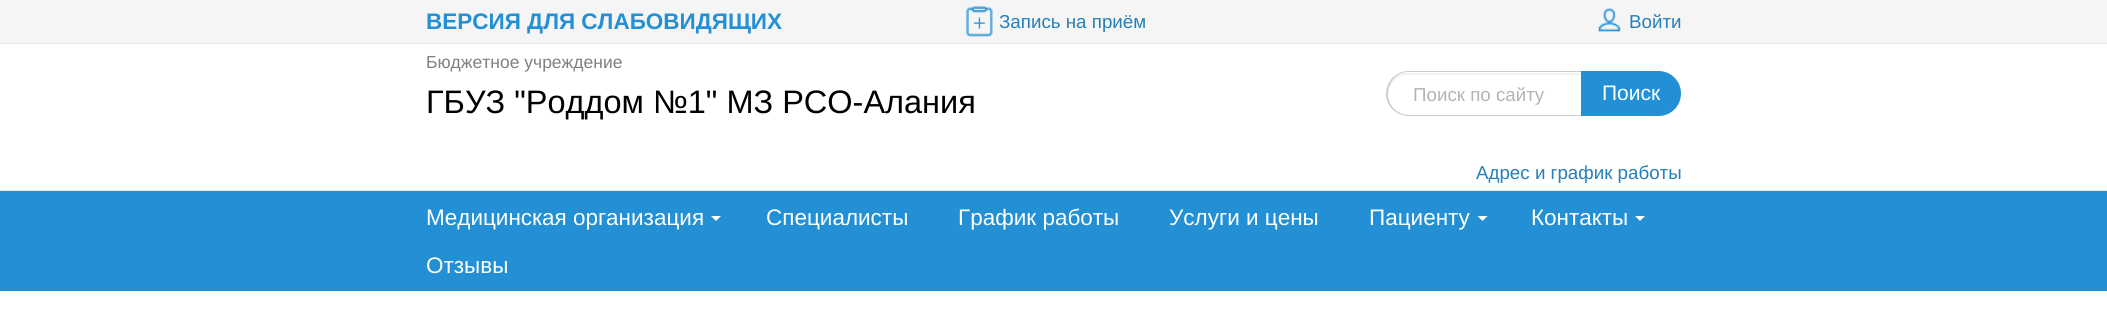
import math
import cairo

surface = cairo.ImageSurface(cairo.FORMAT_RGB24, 2107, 318)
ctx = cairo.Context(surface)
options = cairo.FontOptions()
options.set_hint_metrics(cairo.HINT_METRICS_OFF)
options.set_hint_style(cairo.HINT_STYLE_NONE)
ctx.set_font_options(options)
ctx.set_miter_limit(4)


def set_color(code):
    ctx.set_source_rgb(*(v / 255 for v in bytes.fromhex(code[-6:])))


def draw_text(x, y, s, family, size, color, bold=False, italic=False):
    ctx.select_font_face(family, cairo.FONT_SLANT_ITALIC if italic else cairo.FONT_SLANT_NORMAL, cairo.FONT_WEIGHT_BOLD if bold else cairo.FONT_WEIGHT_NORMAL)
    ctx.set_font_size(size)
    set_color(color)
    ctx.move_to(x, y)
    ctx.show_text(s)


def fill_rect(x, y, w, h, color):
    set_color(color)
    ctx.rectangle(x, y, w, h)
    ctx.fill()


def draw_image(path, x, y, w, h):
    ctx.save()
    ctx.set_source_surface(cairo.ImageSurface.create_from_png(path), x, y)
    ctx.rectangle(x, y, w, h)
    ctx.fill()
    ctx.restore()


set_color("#f5f5f5")
ctx.paint()
fill_rect(0, 43, 2107, 1, "#e8e8e8")
draw_text(426, 29, "ВЕРСИЯ ДЛЯ СЛАБОВИДЯЩИХ", "Liberation Sans", 22.5, "#238fd4", bold=True)
draw_image("assets/img1.png", 966, 6, 27, 31)
draw_text(999, 28, "Запись на приём", "Liberation Sans", 18.75, "#257fb8")
draw_image("assets/img2.png", 1598, 8, 23, 24)
draw_text(1629, 28, "Войти", "Liberation Sans", 18.75, "#257fb8")
fill_rect(0, 44, 2107, 146, "#ffffff")
fill_rect(0, 190, 2107, 1, "#e8e8e8")
draw_text(426, 68, "Бюджетное учреждение", "Liberation Sans", 17.5, "#808080")
draw_text(426, 113, "ГБУЗ \"Роддом №1\" МЗ РСО-Алания", "Liberation Sans", 32.5, "#000000")
set_color("#f2f2f2")
ctx.new_path()
ctx.move_to(1409, 75)
ctx.line_to(1581, 75)
ctx.line_to(1581, 73)
ctx.line_to(1409, 73)
ctx.curve_to(1397, 73, 1388, 82, 1388, 94)
ctx.line_to(1388, 95)
ctx.curve_to(1389, 84, 1397, 75, 1409, 75)
ctx.close_path()
ctx.fill()
set_color("#cecece")
ctx.set_fill_rule(cairo.FILL_RULE_EVEN_ODD)
ctx.new_path()
ctx.move_to(1409, 71)
ctx.line_to(1581, 71)
ctx.line_to(1581, 116)
ctx.line_to(1409, 116)
ctx.curve_to(1396, 116, 1386, 106, 1386, 94)
ctx.curve_to(1386, 81, 1396, 71, 1409, 71)
ctx.close_path()
ctx.move_to(1409, 72)
ctx.line_to(1581, 72)
ctx.line_to(1581, 115)
ctx.line_to(1409, 115)
ctx.curve_to(1397, 115, 1388, 105, 1388, 94)
ctx.curve_to(1388, 82, 1397, 72, 1409, 72)
ctx.close_path()
ctx.fill()
draw_text(1413, 101, "Поиск по сайту", "Liberation Sans", 18.75, "#b4b4b4")
set_color("#238fd4")
ctx.new_path()
ctx.move_to(1581, 71)
ctx.line_to(1658.5, 71)
ctx.curve_to(1671, 71, 1681, 81, 1681, 93.5)
ctx.curve_to(1681, 106, 1671, 116, 1658.5, 116)
ctx.line_to(1581, 116)
ctx.close_path()
ctx.fill()
draw_text(1602, 100, "Поиск", "Liberation Sans", 21, "#ffffff")
draw_text(1476, 179, "Адрес и график работы", "Liberation Sans", 18.75, "#257fb8")
fill_rect(0, 191, 2107, 100, "#238fd4")
draw_text(426, 225, "Медицинская организация", "Liberation Sans", 22.5, "#ffffff")
ctx.set_fill_rule(cairo.FILL_RULE_WINDING)
ctx.new_path()
ctx.move_to(711, 216)
ctx.line_to(721, 216)
ctx.line_to(716, 221)
ctx.close_path()
ctx.fill()
draw_text(766, 225, "Специалисты", "Liberation Sans", 22.5, "#ffffff")
draw_text(958, 225, "График работы", "Liberation Sans", 22.5, "#ffffff")
draw_text(1169, 225, "Услуги и цены", "Liberation Sans", 22.5, "#ffffff")
draw_text(1369, 225, "Пациенту", "Liberation Sans", 22.5, "#ffffff")
ctx.new_path()
ctx.move_to(1477.5, 216)
ctx.line_to(1487.5, 216)
ctx.line_to(1482.5, 221)
ctx.close_path()
ctx.fill()
draw_text(1531, 225, "Контакты", "Liberation Sans", 22.5, "#ffffff")
ctx.new_path()
ctx.move_to(1635, 216)
ctx.line_to(1645, 216)
ctx.line_to(1640, 221)
ctx.close_path()
ctx.fill()
draw_text(426, 273, "Отзывы", "Liberation Sans", 22.5, "#ffffff")
fill_rect(0, 291, 2107, 27, "#ffffff")
surface.write_to_png("output.png")
